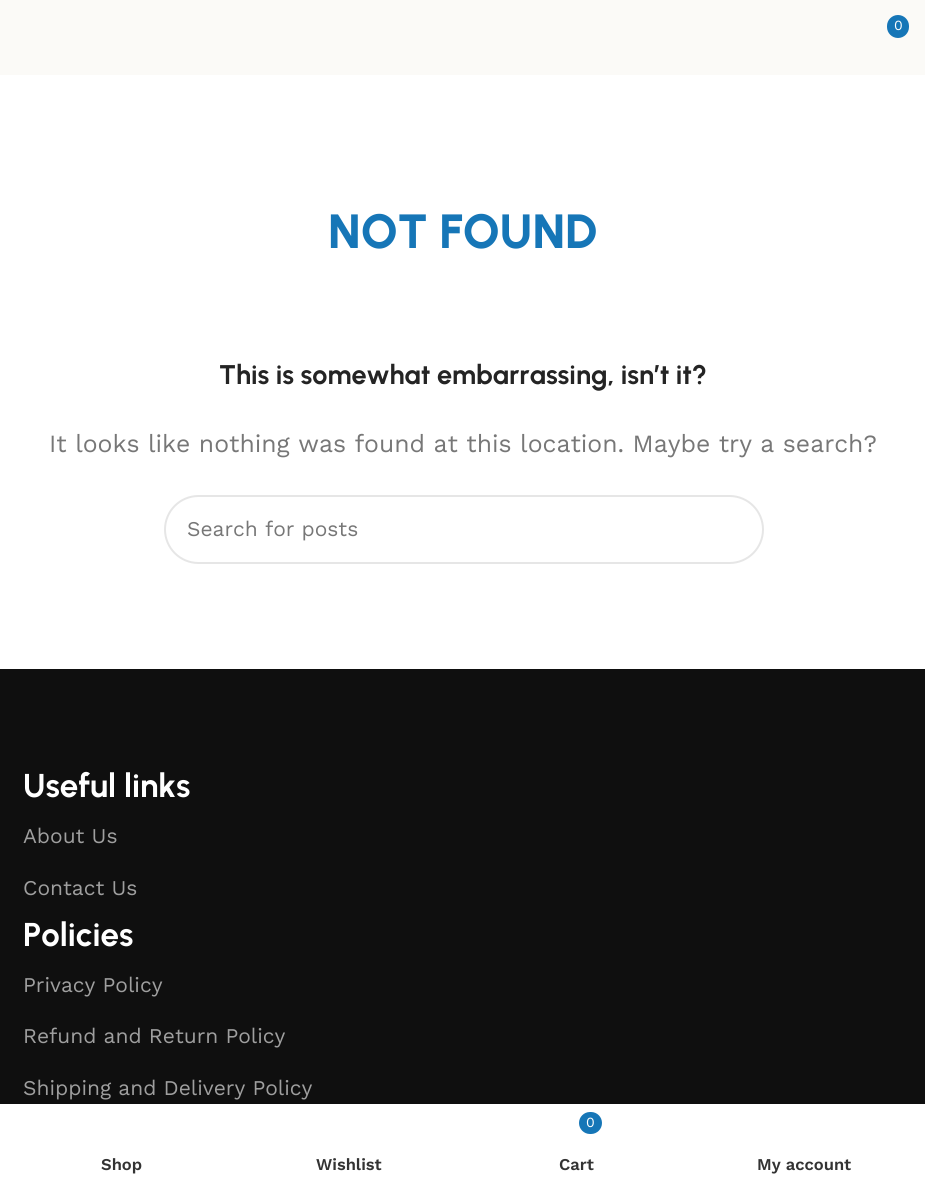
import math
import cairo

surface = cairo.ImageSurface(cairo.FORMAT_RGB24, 925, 1186)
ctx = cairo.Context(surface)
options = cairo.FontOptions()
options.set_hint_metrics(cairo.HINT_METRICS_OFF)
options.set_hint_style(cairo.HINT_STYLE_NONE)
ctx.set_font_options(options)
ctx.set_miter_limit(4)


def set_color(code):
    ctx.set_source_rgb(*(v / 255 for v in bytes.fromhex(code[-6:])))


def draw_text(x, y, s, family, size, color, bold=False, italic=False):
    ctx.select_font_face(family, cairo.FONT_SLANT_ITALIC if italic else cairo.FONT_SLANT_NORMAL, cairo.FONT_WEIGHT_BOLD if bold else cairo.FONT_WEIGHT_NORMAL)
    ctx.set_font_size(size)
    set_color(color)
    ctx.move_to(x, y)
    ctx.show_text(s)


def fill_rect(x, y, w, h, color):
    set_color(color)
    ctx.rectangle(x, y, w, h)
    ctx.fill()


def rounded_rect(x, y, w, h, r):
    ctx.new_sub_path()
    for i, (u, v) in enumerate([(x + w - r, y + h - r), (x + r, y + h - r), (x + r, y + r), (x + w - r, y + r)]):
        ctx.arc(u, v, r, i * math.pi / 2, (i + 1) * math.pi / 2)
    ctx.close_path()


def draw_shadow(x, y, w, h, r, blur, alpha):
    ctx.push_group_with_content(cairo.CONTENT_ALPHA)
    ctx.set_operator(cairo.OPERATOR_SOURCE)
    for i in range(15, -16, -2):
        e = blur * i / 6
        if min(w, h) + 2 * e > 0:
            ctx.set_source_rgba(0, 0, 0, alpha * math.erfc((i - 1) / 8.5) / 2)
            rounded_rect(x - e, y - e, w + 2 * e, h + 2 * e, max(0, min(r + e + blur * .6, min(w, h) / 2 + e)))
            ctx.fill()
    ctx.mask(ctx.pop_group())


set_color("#ffffff")
ctx.paint()
fill_rect(0, 0, 925, 75, "#fbfaf7")
set_color("#1676b7")
rounded_rect(887, 15, 22, 23, 11)
ctx.fill()
draw_text(894, 30, "0", "Work Sans", 14, "#ffffff")
draw_text(328, 248, "NOT FOUND", "Urbanist ExtraBold", 48, "#1676b7")
draw_text(219, 384, "This is somewhat embarrassing, isn’t it?", "Urbanist", 27, "#242424", bold=True)
draw_text(49, 452, "It looks like nothing was found at this location. Maybe try a search?", "Work Sans", 24.75, "#777777")
rounded_rect(165, 496, 598, 67, 33.5)
set_color("#e6e6e6")
ctx.stroke()
draw_text(187, 536, "Search for posts", "Work Sans", 21, "#777777")
fill_rect(0, 669, 925, 435, "#0f0f0f")
draw_text(23, 797, "Useful links", "Urbanist", 33, "#ffffff", bold=True)
draw_text(23, 843, "About Us", "Work Sans", 21, "#9f9f9f")
draw_text(23, 895, "Contact Us", "Work Sans", 21, "#9f9f9f")
draw_text(23, 946, "Policies", "Urbanist", 33, "#ffffff", bold=True)
draw_text(23, 992, "Privacy Policy", "Work Sans", 21, "#9f9f9f")
draw_text(23, 1043, "Refund and Return Policy", "Work Sans", 21, "#9f9f9f")
draw_text(23, 1095, "Shipping and Delivery Policy", "Work Sans", 21, "#9f9f9f")
set_color("#000000")
draw_shadow(0, 1104, 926, 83, 0, 7, 0.12)
fill_rect(0, 1104, 925, 82, "#ffffff")
draw_text(101, 1170, "Shop", "Work Sans SemiBold", 16.5, "#333333")
draw_text(316, 1170, "Wishlist", "Work Sans SemiBold", 16.5, "#333333")
set_color("#1676b7")
rounded_rect(579, 1112, 23, 22, 11)
ctx.fill()
draw_text(586, 1127, "0", "Work Sans", 14, "#ffffff")
draw_text(559, 1170, "Cart", "Work Sans SemiBold", 16.5, "#333333")
draw_text(757, 1170, "My account", "Work Sans SemiBold", 16.5, "#333333")
surface.write_to_png("output.png")
